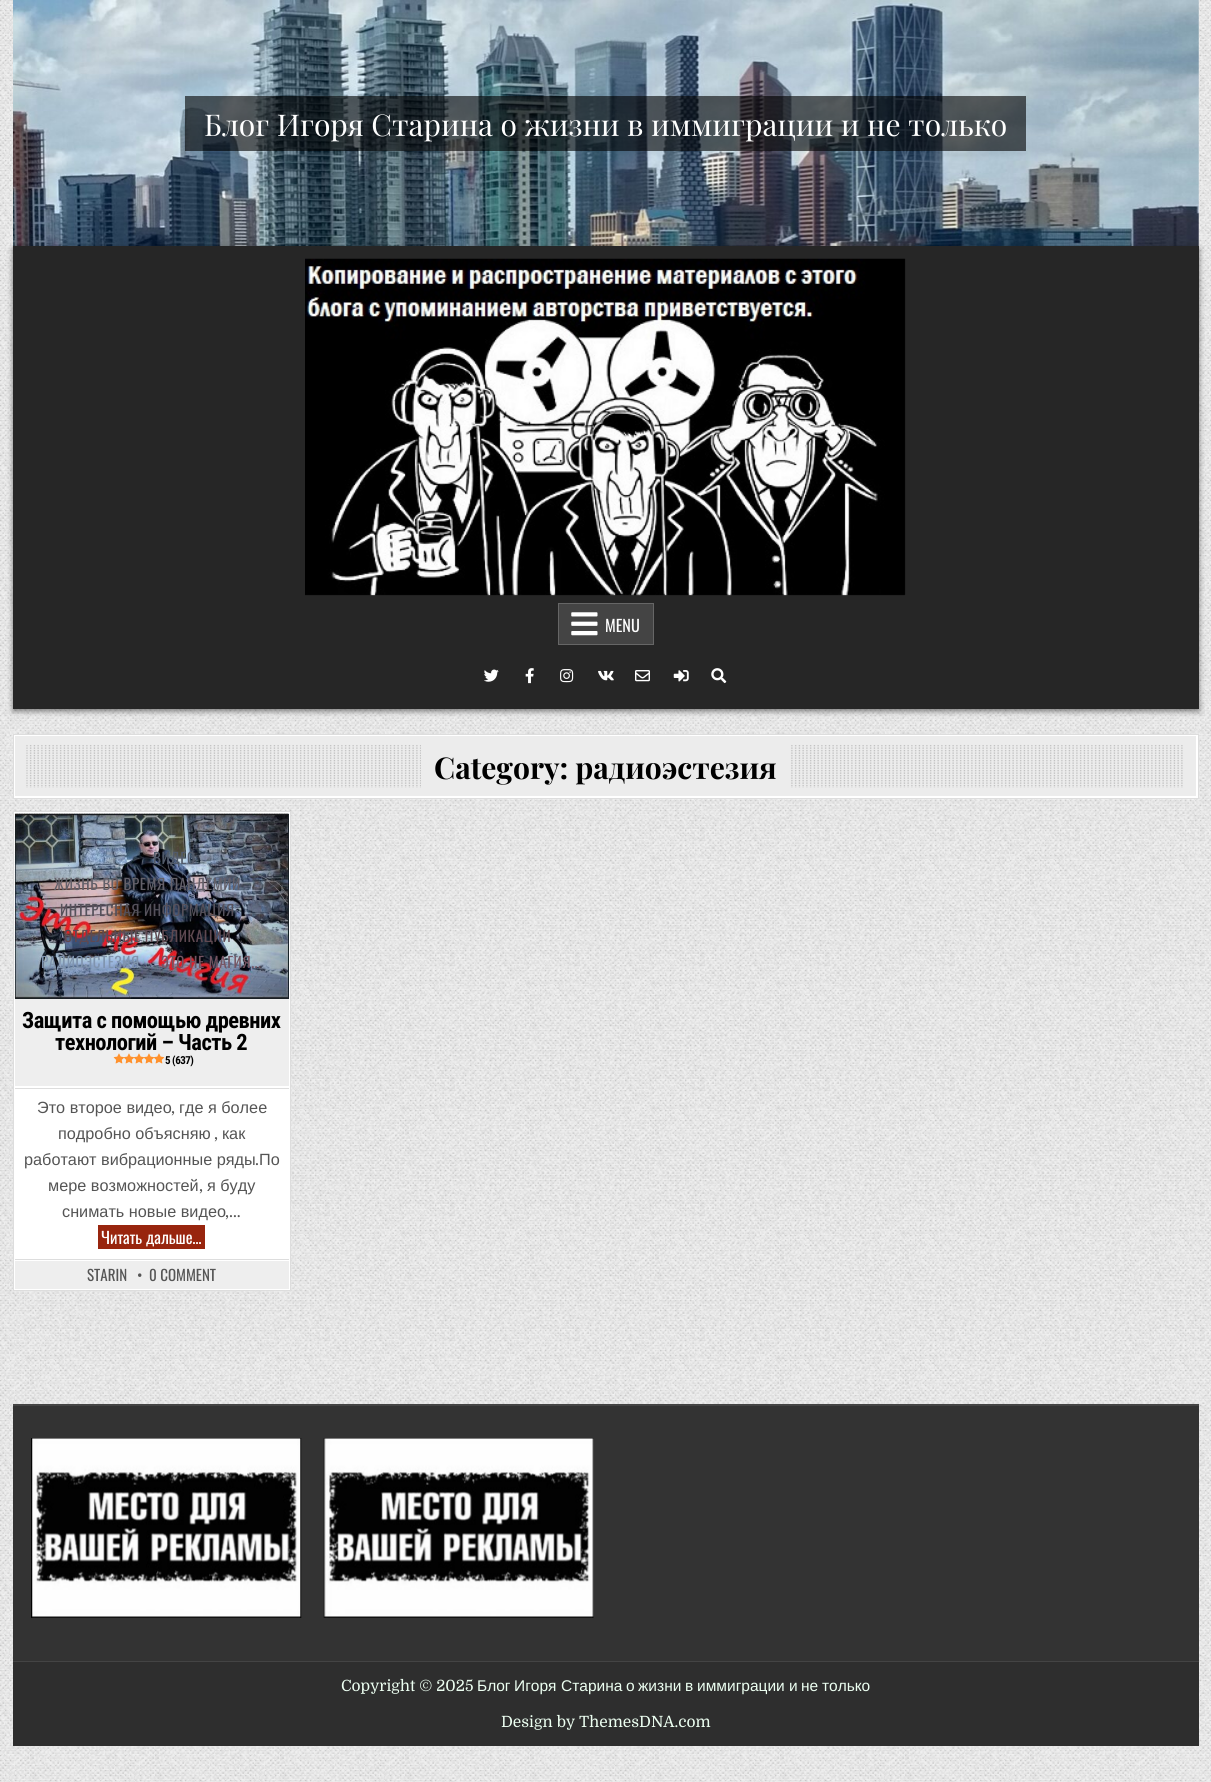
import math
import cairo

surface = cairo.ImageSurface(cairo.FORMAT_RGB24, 1211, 1782)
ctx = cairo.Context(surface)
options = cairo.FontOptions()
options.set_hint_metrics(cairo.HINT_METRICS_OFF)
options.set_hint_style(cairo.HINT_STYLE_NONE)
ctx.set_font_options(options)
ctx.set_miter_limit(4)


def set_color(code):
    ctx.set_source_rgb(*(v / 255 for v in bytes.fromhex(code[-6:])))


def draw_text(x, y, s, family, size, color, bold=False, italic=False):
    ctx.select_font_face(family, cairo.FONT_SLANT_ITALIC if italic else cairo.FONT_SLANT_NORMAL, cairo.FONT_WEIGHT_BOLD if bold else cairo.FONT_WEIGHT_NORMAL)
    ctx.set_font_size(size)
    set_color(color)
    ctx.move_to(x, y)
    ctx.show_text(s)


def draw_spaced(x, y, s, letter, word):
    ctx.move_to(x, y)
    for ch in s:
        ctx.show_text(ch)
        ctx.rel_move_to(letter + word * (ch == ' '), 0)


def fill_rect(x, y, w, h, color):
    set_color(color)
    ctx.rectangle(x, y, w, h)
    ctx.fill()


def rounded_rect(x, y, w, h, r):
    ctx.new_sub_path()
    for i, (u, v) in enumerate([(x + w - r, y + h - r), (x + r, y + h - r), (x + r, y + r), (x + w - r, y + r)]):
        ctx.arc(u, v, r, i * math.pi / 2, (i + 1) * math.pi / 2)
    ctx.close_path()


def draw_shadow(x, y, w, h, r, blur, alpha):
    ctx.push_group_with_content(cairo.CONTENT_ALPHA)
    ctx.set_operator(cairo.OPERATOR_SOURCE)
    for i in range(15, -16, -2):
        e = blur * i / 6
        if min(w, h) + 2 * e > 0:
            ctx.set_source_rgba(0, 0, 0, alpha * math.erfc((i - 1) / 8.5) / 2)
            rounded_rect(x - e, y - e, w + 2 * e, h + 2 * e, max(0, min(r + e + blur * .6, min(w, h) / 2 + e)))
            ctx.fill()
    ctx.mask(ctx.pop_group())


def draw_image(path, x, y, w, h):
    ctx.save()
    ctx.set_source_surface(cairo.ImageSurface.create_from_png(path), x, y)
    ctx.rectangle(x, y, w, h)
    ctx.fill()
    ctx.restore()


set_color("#ffffff")
ctx.paint()
draw_image("assets/img1.png", 0, 0, 1211, 1782)
draw_image("assets/img2.png", 13, 0, 1186, 246)
ctx.set_source_rgba(0, 0, 0, 0.6)
ctx.rectangle(185, 96, 841, 55)
ctx.fill()
draw_text(204, 136, "Блог Игоря Старина о жизни в иммиграции и не только", "Playfair Display", 30, "#ffffff")
set_color("#000000")
draw_shadow(13, 249, 1186, 462, 0, 3, 0.5)
fill_rect(13, 246, 1186, 463, "#262626")
draw_image("assets/img3.png", 305, 258, 601, 338)
set_color("#444444")
ctx.rectangle(558.5, 603.5, 95, 41)
ctx.fill_preserve()
set_color("#666666")
ctx.set_line_width(1)
ctx.stroke()
draw_image("assets/img4.png", 571, 612, 27, 24)
draw_text(605, 632, "MENU", "Oswald", 16.25, "#ffffff")
draw_image("assets/img5.png", 484, 669, 15, 13)
draw_image("assets/img6.png", 525, 668, 9, 16)
draw_image("assets/img7.png", 560, 669, 14, 14)
draw_image("assets/img8.png", 598, 670, 16, 11)
draw_image("assets/img9.png", 635, 670, 15, 12)
draw_image("assets/img10.png", 673, 670, 16, 12)
draw_image("assets/img11.png", 711, 668, 16, 16)
fill_rect(15, 736, 1181, 60, "#ececec")
ctx.save()
ctx.rectangle(14, 735, 1184, 63)
ctx.clip()
set_color("#ffffff")
ctx.set_fill_rule(cairo.FILL_RULE_EVEN_ODD)
ctx.new_path()
ctx.move_to(-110, 611)
ctx.line_to(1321, 611)
ctx.line_to(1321, 921)
ctx.line_to(-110, 921)
ctx.close_path()
ctx.move_to(12, 734)
ctx.line_to(1196, 734)
ctx.line_to(1196, 796)
ctx.line_to(12, 796)
ctx.close_path()
ctx.fill()
ctx.new_path()
ctx.move_to(-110, 611)
ctx.line_to(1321, 611)
ctx.line_to(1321, 921)
ctx.line_to(-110, 921)
ctx.close_path()
ctx.move_to(15, 736)
ctx.line_to(1199, 736)
ctx.line_to(1199, 799)
ctx.line_to(15, 799)
ctx.close_path()
ctx.fill()
ctx.restore()
ctx.rectangle(13.5, 734.5, 1185, 64)
set_color("#dddddd")
ctx.stroke()
draw_image("assets/img12.png", 26, 745, 1157, 43)
fill_rect(421, 745, 368, 43, "#ececec")
draw_text(434, 779, "Category: радиоэстезия", "Playfair Display", 30, "#000000", bold=True)
set_color("#ffffff")
ctx.rectangle(13.5, 811.5, 277, 479)
ctx.fill_preserve()
set_color("#dddddd")
ctx.stroke()
fill_rect(15, 814, 274, 185, "#1e2b34")
draw_image("assets/img13.png", 14, 813, 274, 185)
draw_image("assets/img14.png", 15, 813, 274, 186)
ctx.select_font_face("Oswald")
ctx.set_font_size(15)
set_color("#525b6a")
draw_spaced(153, 864, "ВИДЕО", 0.6, 0)
set_color("#636069")
draw_spaced(54, 890, "ЖИЗНЬ ВО ВРЕМЯ ПАНДЕМИИ", 0.6, 0)
set_color("#55515b")
draw_spaced(60, 916, "ИНТЕРЕСНАЯ ИНФОРМАЦИЯ", 0.6, 0)
set_color("#5f4951")
draw_spaced(64, 942, "ОТДЕЛЬНЫЕ ПУБЛИКАЦИИ", 0.6, 0)
set_color("#8094ae")
draw_spaced(41, 968, "РАДИОЭСТЕЗИЯ", 0.6, 0)
set_color("#755462")
draw_spaced(161, 968, "ЭТО НЕ МАГИЯ...", 0.6, 0)
fill_rect(15, 999, 274, 87, "#eeeeee")
ctx.select_font_face("Roboto Condensed", cairo.FONT_SLANT_NORMAL, cairo.FONT_WEIGHT_BOLD)
ctx.set_font_size(22.5)
set_color("#000000")
draw_spaced(22, 1028, "Защита с помощью древних", -0.5, 0)
draw_spaced(55, 1050, "технологий – Часть 2", -0.5, 0)
draw_image("assets/img15.png", 113, 1053, 12, 11)
draw_image("assets/img16.png", 124, 1053, 11, 11)
draw_image("assets/img16.png", 134, 1053, 11, 11)
draw_image("assets/img16.png", 144, 1053, 11, 11)
draw_image("assets/img16.png", 154, 1053, 11, 11)
ctx.set_font_size(11)
draw_spaced(165, 1064, "5 (637)", -0.5, 0)
fill_rect(15, 1088, 274, 1, "#dddddd")
draw_text(37, 1113, "Это второе видео", "Liberation Sans", 16.25, "#555555")
draw_text(171, 1113, ",", "Domine", 16.25, "#555555")
draw_text(179, 1113, "где я более", "Liberation Sans", 16.25, "#555555")
draw_text(58, 1139, "подробно объясняю", "Liberation Sans", 16.25, "#555555")
draw_text(214, 1139, ",", "Domine", 16.25, "#555555")
draw_text(222, 1139, "как", "Liberation Sans", 16.25, "#555555")
draw_text(24, 1165, "работают вибрационные ряды", "Liberation Sans", 16.25, "#555555")
draw_text(255, 1165, ".", "Domine", 16.25, "#555555")
draw_text(259, 1165, "По", "Liberation Sans", 16.25, "#555555")
draw_text(48, 1191, "мере возможностей", "Liberation Sans", 16.25, "#555555")
draw_text(199, 1191, ",", "Domine", 16.25, "#555555")
draw_text(207, 1191, "я буду", "Liberation Sans", 16.25, "#555555")
draw_text(62, 1217, "снимать новые видео", "Liberation Sans", 16.25, "#555555")
draw_text(225, 1217, ",…", "Domine", 16.25, "#555555")
fill_rect(98, 1225, 107, 24, "#98250e")
draw_text(101, 1244, "Читать дальше…", "Oswald", 16.25, "#ffffff")
fill_rect(15, 1261, 274, 28, "#eeeeee")
fill_rect(15, 1259, 274, 1, "#dddddd")
draw_text(87, 1281, "STARIN", "Oswald", 15, "#555555")
draw_text(137, 1281, "•", "Oswald", 15, "#555555")
draw_text(149, 1281, "0 COMMENT", "Oswald", 15, "#555555")
fill_rect(13, 1404, 1186, 2, "#444444")
fill_rect(13, 1406, 1186, 255, "#333333")
draw_image("assets/img17.png", 31, 1438, 271, 180)
draw_image("assets/img18.png", 323, 1438, 271, 180)
fill_rect(13, 1662, 1186, 84, "#2e2e2e")
fill_rect(13, 1661, 1186, 1, "#444444")
draw_text(341, 1691, "Copyright © 2025", "Domine", 15.5, "#ecfff1")
draw_text(477, 1691, "Блог", "Liberation Sans", 15.5, "#ecfff1")
draw_text(514, 1691, "Игоря", "Liberation Sans", 15.5, "#ecfff1")
draw_text(561, 1691, "Старина", "Liberation Sans", 15.5, "#ecfff1")
draw_text(626, 1691, "о", "Liberation Sans", 15.5, "#ecfff1")
draw_text(638, 1691, "жизни", "Liberation Sans", 15.5, "#ecfff1")
draw_text(685, 1691, "в", "Liberation Sans", 15.5, "#ecfff1")
draw_text(697, 1691, "иммиграции", "Liberation Sans", 15.5, "#ecfff1")
draw_text(789, 1691, "и", "Liberation Sans", 15.5, "#ecfff1")
draw_text(801, 1691, "не", "Liberation Sans", 15.5, "#ecfff1")
draw_text(822, 1691, "только", "Liberation Sans", 15.5, "#ecfff1")
draw_text(501, 1727, "Design by ThemesDNA.com", "Domine", 15.5, "#ecfff1")
surface.write_to_png("output.png")
